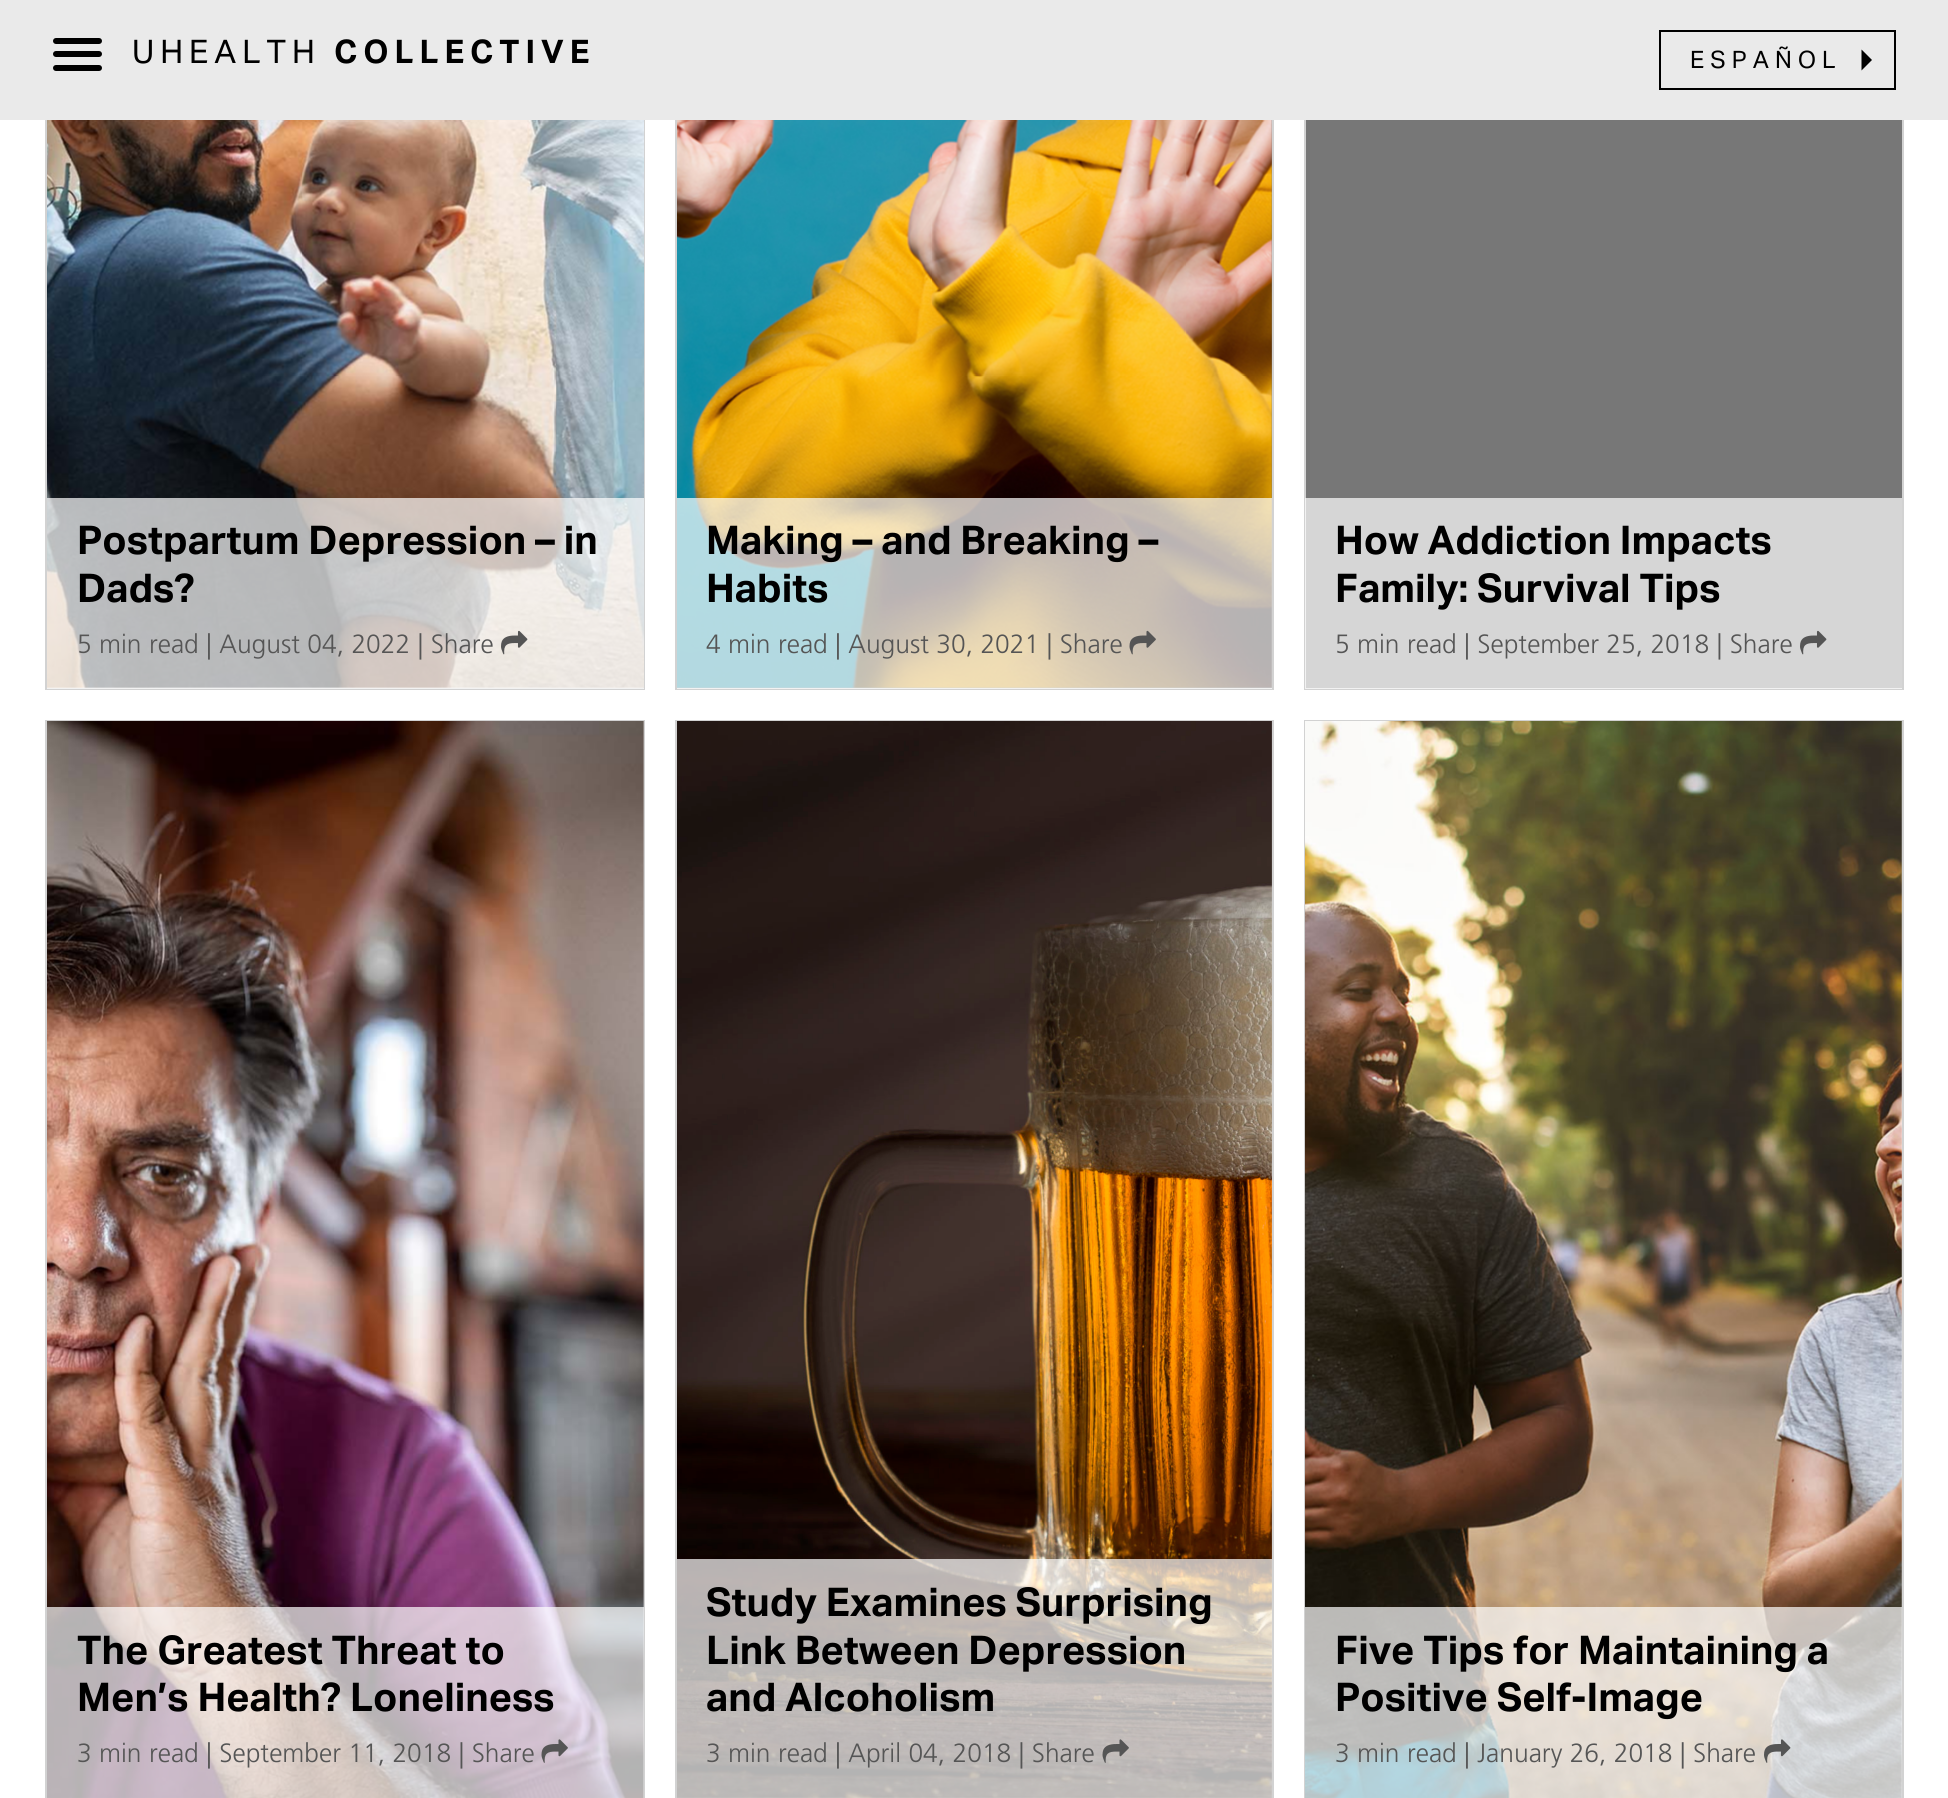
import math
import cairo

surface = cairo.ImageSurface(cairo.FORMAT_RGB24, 1948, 1798)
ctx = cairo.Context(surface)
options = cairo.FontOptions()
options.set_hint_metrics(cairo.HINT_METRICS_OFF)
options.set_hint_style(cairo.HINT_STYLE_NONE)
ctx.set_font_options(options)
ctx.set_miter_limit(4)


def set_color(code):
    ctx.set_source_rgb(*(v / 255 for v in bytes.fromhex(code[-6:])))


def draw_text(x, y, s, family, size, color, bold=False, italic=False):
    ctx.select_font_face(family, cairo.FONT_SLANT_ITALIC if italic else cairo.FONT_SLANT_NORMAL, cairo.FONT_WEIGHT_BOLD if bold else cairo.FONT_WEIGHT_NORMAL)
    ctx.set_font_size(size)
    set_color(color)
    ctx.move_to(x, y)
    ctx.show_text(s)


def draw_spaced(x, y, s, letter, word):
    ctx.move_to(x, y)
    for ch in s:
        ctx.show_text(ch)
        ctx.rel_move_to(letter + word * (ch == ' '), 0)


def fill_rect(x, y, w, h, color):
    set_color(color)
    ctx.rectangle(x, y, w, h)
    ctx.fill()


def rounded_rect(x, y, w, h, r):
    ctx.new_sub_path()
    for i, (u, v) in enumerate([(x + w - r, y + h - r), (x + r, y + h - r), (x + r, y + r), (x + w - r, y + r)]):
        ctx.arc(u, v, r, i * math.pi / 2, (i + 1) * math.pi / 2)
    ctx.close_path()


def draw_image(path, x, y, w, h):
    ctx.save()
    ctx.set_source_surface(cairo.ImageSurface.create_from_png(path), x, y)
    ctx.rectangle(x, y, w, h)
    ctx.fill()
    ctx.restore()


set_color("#ffffff")
ctx.paint()
ctx.rectangle(46, -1, 598, 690)
set_color("#d2d2d2")
ctx.stroke()
fill_rect(677, 120, 595, 568, "#777777")
ctx.rectangle(676, -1, 597, 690)
set_color("#d2d2d2")
ctx.stroke()
fill_rect(1306, 120, 596, 568, "#777777")
ctx.rectangle(1305, -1, 598, 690)
set_color("#d2d2d2")
ctx.stroke()
fill_rect(0, 0, 1948, 120, "#eaeaea")
set_color("#000000")
rounded_rect(53, 38, 49, 6, 3)
ctx.fill()
rounded_rect(53, 51, 49, 6, 3)
ctx.fill()
rounded_rect(53, 65, 49, 6, 3)
ctx.fill()
ctx.select_font_face("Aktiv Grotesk")
ctx.set_font_size(32.5)
draw_spaced(132, 63, "UHEALTH", 6, 0)
ctx.select_font_face("Aktiv Grotesk", cairo.FONT_SLANT_NORMAL, cairo.FONT_WEIGHT_BOLD)
draw_spaced(334, 63, "COLLECTIVE", 6, 0)
ctx.rectangle(1660, 31, 235, 58)
ctx.stroke()
ctx.select_font_face("Aktiv Grotesk")
ctx.set_font_size(24)
draw_spaced(1690, 68, "ESPAÑOL", 6, 0)
ctx.new_path()
ctx.move_to(1861.5, 70.5)
ctx.line_to(1861.5, 49.5)
ctx.line_to(1872, 60)
ctx.close_path()
ctx.fill()
draw_image("assets/img1.png", 47, 120, 597, 568)
ctx.set_source_rgba(1, 1, 1, 0.7)
ctx.rectangle(47, 498, 597, 191)
ctx.fill()
draw_text(77, 554, "Postpartum Depression – in", "Aktiv Grotesk", 39.6, "#000000", bold=True)
draw_text(77, 602, "Dads?", "Aktiv Grotesk", 39.6, "#000000", bold=True)
draw_text(77, 653, "5 min read | August 04, 2022 | Share", "Frutiger Light", 26.4, "#555555")
draw_image("assets/img2.png", 501, 630, 27, 25)
draw_image("assets/img3.png", 677, 120, 595, 568)
ctx.set_source_rgba(1, 1, 1, 0.7)
ctx.rectangle(677, 498, 595, 191)
ctx.fill()
draw_text(706, 554, "Making – and Breaking –", "Aktiv Grotesk", 39.6, "#000000", bold=True)
draw_text(706, 602, "Habits", "Aktiv Grotesk", 39.6, "#000000", bold=True)
draw_text(706, 653, "4 min read | August 30, 2021 | Share", "Frutiger Light", 26.4, "#555555")
draw_image("assets/img4.png", 1129, 630, 27, 25)
ctx.set_source_rgba(1, 1, 1, 0.7)
ctx.rectangle(1305, 498, 597, 191)
ctx.fill()
draw_text(1335, 554, "How Addiction Impacts", "Aktiv Grotesk", 39.6, "#000000", bold=True)
draw_text(1335, 602, "Family: Survival Tips", "Aktiv Grotesk", 39.6, "#000000", bold=True)
draw_text(1335, 653, "5 min read | September 25, 2018 | Share", "Frutiger Light", 26.4, "#555555")
draw_image("assets/img5.png", 1800, 630, 27, 25)
ctx.rectangle(46, 721, 598, 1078)
set_color("#d2d2d2")
ctx.stroke()
draw_image("assets/img6.png", 47, 721, 597, 1077)
ctx.set_source_rgba(1, 1, 1, 0.7)
ctx.rectangle(47, 1607, 597, 191)
ctx.fill()
draw_text(77, 1664, "The Greatest Threat to", "Aktiv Grotesk", 39.6, "#000000", bold=True)
draw_text(77, 1711, "Men’s Health? Loneliness", "Aktiv Grotesk", 39.6, "#000000", bold=True)
draw_text(77, 1762, "3 min read | September 11, 2018 | Share", "Frutiger Light", 26.4, "#555555")
draw_image("assets/img7.png", 541, 1739, 27, 24)
ctx.rectangle(676, 721, 597, 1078)
set_color("#d2d2d2")
ctx.stroke()
draw_image("assets/img8.png", 677, 721, 595, 1077)
ctx.set_source_rgba(1, 1, 1, 0.7)
ctx.rectangle(677, 1559, 595, 239)
ctx.fill()
draw_text(706, 1616, "Study Examines Surprising", "Aktiv Grotesk", 39.6, "#000000", bold=True)
draw_text(706, 1664, "Link Between Depression", "Aktiv Grotesk", 39.6, "#000000", bold=True)
draw_text(706, 1711, "and Alcoholism", "Aktiv Grotesk", 39.6, "#000000", bold=True)
draw_text(706, 1762, "3 min read | April 04, 2018 | Share", "Frutiger Light", 26.4, "#555555")
draw_image("assets/img9.png", 1102, 1739, 27, 24)
ctx.rectangle(1305, 721, 598, 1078)
set_color("#d2d2d2")
ctx.stroke()
draw_image("assets/img10.png", 1305, 721, 597, 1077)
ctx.set_source_rgba(1, 1, 1, 0.7)
ctx.rectangle(1305, 1607, 597, 191)
ctx.fill()
draw_text(1335, 1664, "Five Tips for Maintaining a", "Aktiv Grotesk", 39.6, "#000000", bold=True)
draw_text(1335, 1711, "Positive Self-Image", "Aktiv Grotesk", 39.6, "#000000", bold=True)
draw_text(1335, 1762, "3 min read | January 26, 2018 | Share", "Frutiger Light", 26.4, "#555555")
draw_image("assets/img11.png", 1764, 1739, 27, 24)
surface.write_to_png("output.png")
